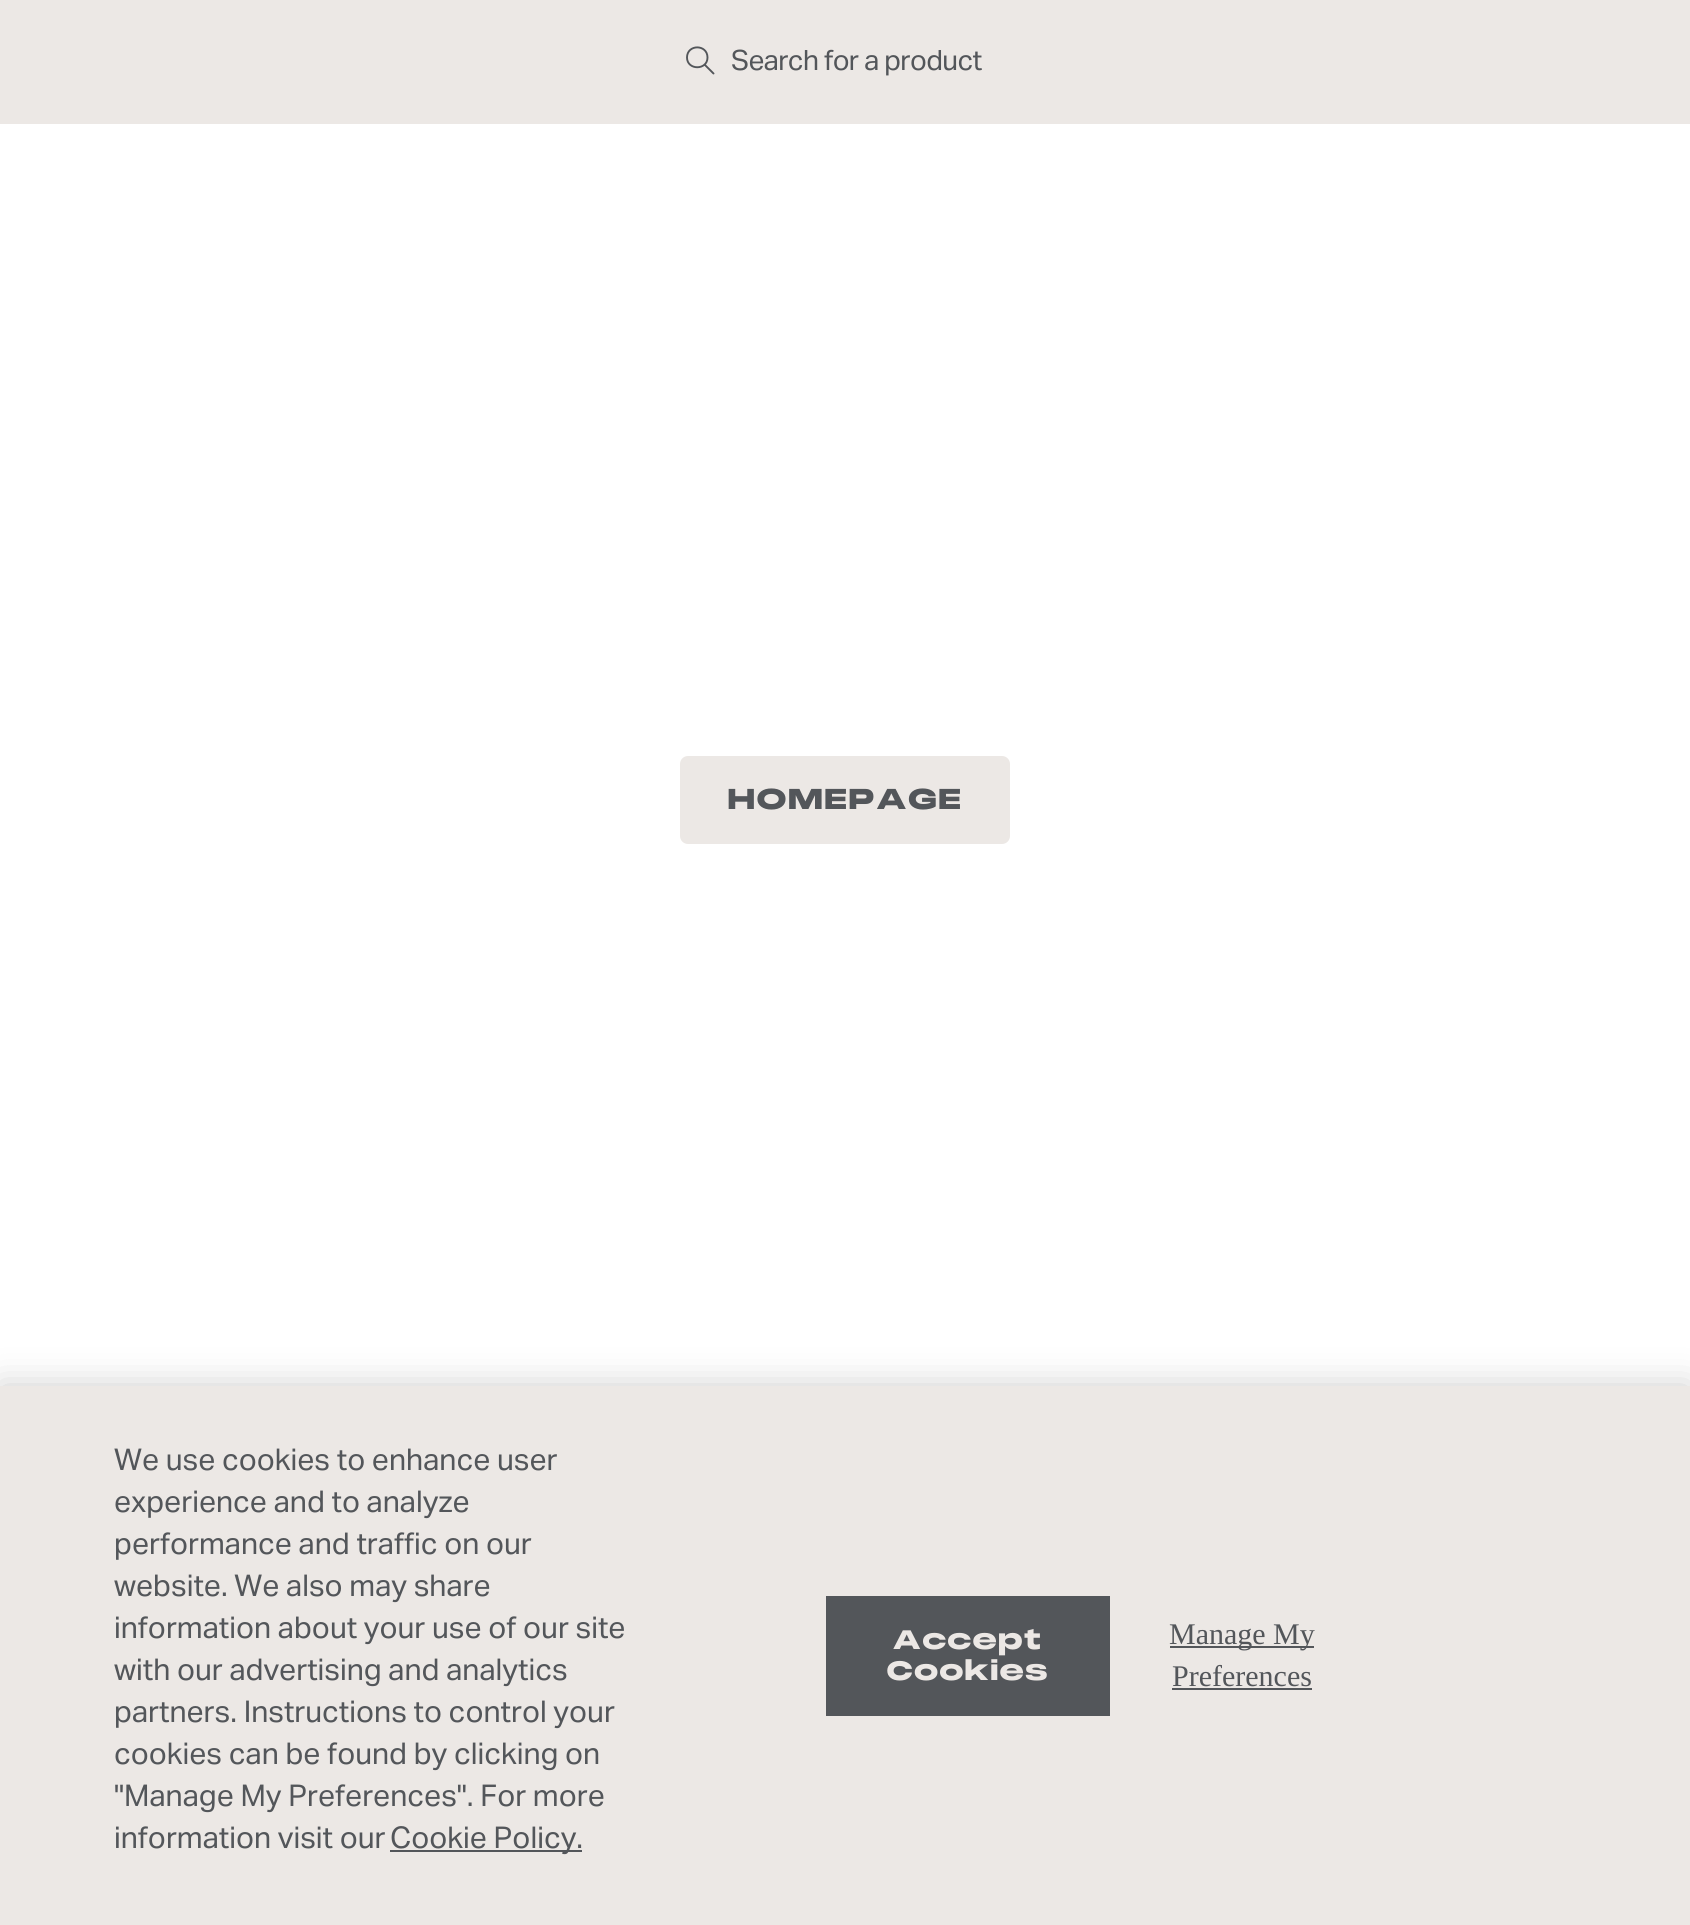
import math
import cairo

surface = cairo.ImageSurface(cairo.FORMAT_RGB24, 1690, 1925)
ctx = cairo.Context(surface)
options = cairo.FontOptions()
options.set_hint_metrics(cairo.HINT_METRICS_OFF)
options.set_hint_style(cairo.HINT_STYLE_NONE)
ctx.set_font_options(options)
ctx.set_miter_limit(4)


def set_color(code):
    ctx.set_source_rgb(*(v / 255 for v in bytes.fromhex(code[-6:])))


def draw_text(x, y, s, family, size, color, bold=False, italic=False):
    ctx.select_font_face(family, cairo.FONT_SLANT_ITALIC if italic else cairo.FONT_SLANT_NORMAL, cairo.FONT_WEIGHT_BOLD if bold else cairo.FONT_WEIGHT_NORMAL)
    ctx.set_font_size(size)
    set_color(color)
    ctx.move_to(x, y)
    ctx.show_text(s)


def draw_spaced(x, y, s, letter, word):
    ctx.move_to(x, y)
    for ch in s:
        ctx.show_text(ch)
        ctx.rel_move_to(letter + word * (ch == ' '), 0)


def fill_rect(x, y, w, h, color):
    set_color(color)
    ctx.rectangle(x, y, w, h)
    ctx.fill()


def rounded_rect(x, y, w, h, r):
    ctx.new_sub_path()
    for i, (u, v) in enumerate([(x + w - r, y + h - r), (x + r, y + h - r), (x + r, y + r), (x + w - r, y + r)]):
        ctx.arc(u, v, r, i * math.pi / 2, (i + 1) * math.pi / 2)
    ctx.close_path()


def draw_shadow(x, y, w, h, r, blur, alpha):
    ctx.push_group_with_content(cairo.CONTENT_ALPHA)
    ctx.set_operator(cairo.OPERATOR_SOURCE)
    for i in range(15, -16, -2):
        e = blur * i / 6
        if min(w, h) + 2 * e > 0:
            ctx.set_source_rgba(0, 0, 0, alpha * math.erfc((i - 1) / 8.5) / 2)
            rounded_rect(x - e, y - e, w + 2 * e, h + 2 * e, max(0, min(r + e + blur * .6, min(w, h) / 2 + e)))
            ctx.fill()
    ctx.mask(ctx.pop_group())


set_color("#ffffff")
ctx.paint()
fill_rect(0, 0, 1690, 124, "#ece8e5")
ctx.new_path()
ctx.move_to(713.5, 73.5)
ctx.line_to(704.5, 64.5)
ctx.move_to(707.5, 57.5)
ctx.curve_to(707.5, 70.5, 687, 70.5, 687, 57.5)
ctx.curve_to(687, 44, 707.5, 44, 707.5, 57.5)
ctx.close_path()
set_color("#53565a")
ctx.set_line_width(1.9)
ctx.set_line_cap(cairo.LINE_CAP_ROUND)
ctx.set_line_join(cairo.LINE_JOIN_ROUND)
ctx.stroke()
ctx.select_font_face("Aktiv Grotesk")
ctx.set_font_size(28)
draw_spaced(731, 70, "Search for a product", -0.6, 0)
set_color("#ece8e5")
rounded_rect(680, 756, 330, 88, 8)
ctx.fill()
ctx.select_font_face("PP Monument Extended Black")
set_color("#53565a")
draw_spaced(727, 809, "HOMEPAGE", 0.5, 0)
set_color("#000000")
draw_shadow(0, 1386, 1690, 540, 0, 18, 0.2)
fill_rect(0, 1386, 1690, 539, "#ece8e5")
draw_text(114, 1470, "We use cookies to enhance user", "Aktiv Grotesk", 30, "#53565a")
draw_text(114, 1512, "experience and to analyze", "Aktiv Grotesk", 30, "#53565a")
draw_text(114, 1554, "performance and traffic on our", "Aktiv Grotesk", 30, "#53565a")
draw_text(114, 1596, "website. We also may share", "Aktiv Grotesk", 30, "#53565a")
draw_text(114, 1638, "information about your use of our site", "Aktiv Grotesk", 30, "#53565a")
draw_text(114, 1680, "with our advertising and analytics", "Aktiv Grotesk", 30, "#53565a")
draw_text(114, 1722, "partners. Instructions to control your", "Aktiv Grotesk", 30, "#53565a")
draw_text(114, 1764, "cookies can be found by clicking on", "Aktiv Grotesk", 30, "#53565a")
draw_text(114, 1806, "\"Manage My Preferences\". For more", "Aktiv Grotesk", 30, "#53565a")
draw_text(114, 1848, "information visit our", "Aktiv Grotesk", 30, "#53565a")
fill_rect(390, 1850, 192, 2, "#53565a")
draw_text(390, 1848, "Cookie Policy.", "Aktiv Grotesk", 30, "#53565a")
fill_rect(826, 1596, 284, 120, "#53565a")
ctx.select_font_face("PP Monument Extended Black")
ctx.set_font_size(26)
set_color("#ece8e5")
draw_spaced(892, 1649, "Accept", 0.5, 0)
draw_spaced(886, 1680, "Cookies", 0.5, 0)
fill_rect(1170, 1646, 144, 2, "#53565a")
draw_text(1169, 1644, "Manage My", "Liberation Serif", 30, "#53565a")
draw_text(1172, 1686, "Preferences", "Liberation Serif", 30, "#53565a")
fill_rect(1172, 1688, 140, 2, "#53565a")
surface.write_to_png("output.png")
